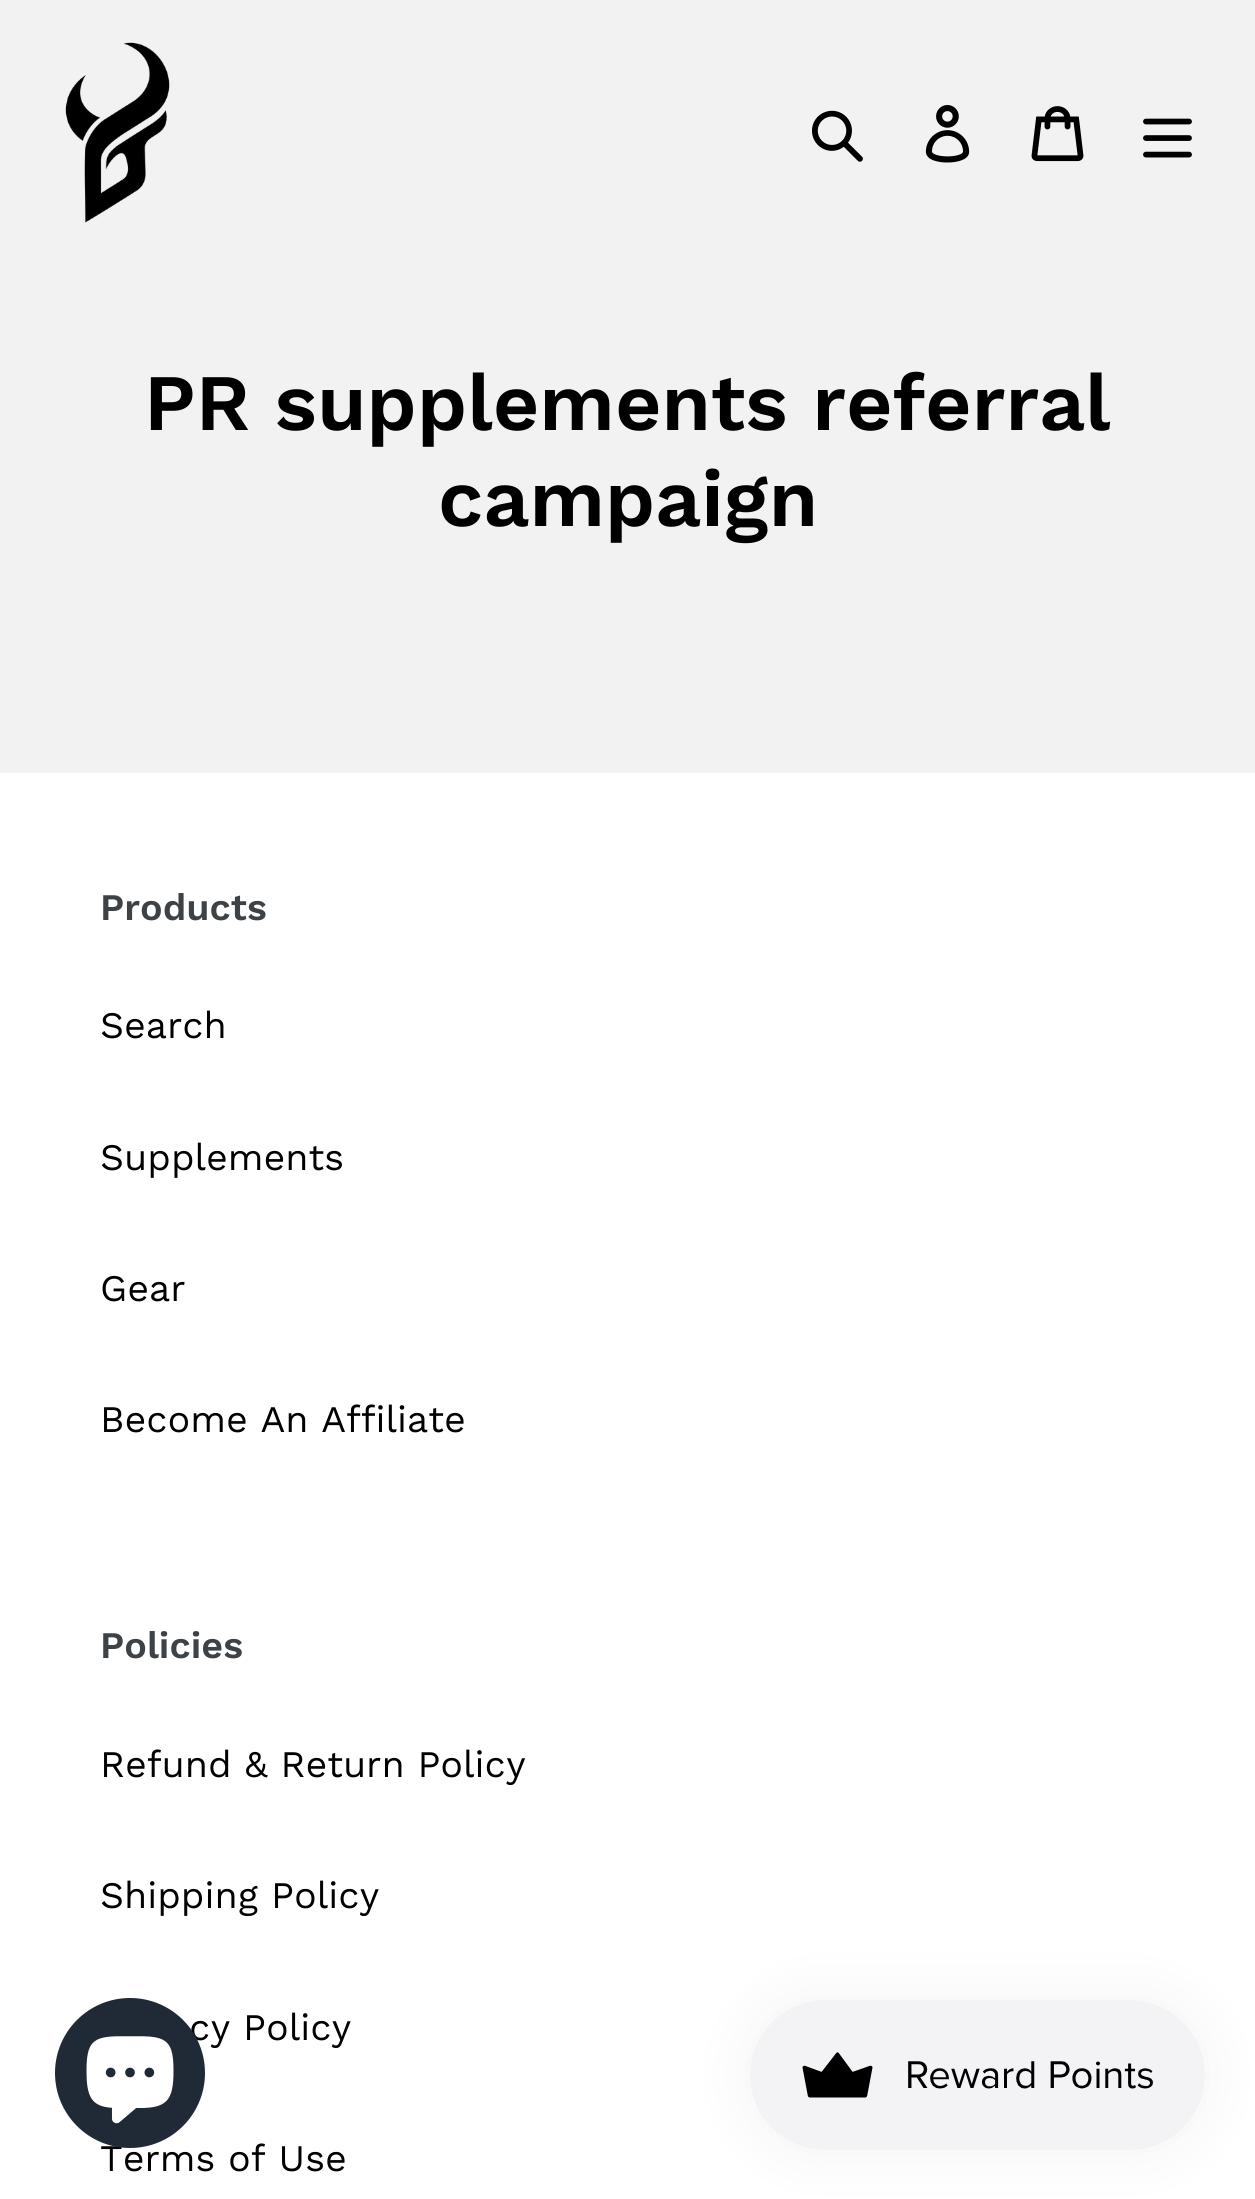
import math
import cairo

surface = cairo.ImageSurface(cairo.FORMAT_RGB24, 1255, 2199)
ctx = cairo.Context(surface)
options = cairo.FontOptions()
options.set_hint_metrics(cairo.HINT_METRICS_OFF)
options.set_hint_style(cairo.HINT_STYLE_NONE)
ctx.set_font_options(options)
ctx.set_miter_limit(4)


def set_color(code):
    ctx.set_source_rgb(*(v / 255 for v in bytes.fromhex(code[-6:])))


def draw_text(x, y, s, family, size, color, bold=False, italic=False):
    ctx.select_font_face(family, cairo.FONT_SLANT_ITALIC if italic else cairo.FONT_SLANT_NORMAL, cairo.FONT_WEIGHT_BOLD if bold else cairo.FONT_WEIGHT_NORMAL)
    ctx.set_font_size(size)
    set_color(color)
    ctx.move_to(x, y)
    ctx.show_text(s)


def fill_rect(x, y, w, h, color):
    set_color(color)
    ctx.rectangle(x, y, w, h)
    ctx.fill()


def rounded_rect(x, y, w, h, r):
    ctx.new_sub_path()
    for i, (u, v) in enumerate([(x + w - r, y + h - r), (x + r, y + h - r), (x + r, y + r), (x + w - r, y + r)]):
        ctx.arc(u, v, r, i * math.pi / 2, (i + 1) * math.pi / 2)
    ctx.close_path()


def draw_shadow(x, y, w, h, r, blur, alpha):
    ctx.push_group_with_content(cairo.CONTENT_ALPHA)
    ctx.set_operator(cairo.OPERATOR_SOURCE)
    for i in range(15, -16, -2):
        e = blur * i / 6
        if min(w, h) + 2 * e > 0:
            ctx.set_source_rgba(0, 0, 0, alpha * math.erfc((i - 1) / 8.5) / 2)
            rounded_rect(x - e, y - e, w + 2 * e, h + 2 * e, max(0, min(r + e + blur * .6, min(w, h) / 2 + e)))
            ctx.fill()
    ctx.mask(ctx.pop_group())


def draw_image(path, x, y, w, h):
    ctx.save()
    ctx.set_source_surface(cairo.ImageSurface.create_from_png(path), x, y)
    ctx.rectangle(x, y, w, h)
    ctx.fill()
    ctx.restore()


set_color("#f2f2f2")
ctx.paint()
draw_image("assets/img1.png", 65, 42, 105, 181)
draw_image("assets/img2.png", 812, 110, 51, 52)
draw_image("assets/img3.png", 925, 105, 45, 58)
draw_image("assets/img4.png", 1031, 106, 53, 56)
draw_image("assets/img5.png", 1143, 118, 49, 40)
draw_text(144, 430, "PR supplements referral", "Work Sans SemiBold", 80, "#000000")
draw_text(438, 526, "campaign", "Work Sans SemiBold", 80, "#000000")
fill_rect(0, 773, 1255, 1426, "#ffffff")
draw_text(100, 920, "Products", "Work Sans SemiBold", 37.5, "#3d4246")
draw_text(100, 1038, "Search", "Work Sans", 37.5, "#000000")
draw_text(100, 1170, "Supplements", "Work Sans", 37.5, "#000000")
draw_text(100, 1301, "Gear", "Work Sans", 37.5, "#000000")
draw_text(100, 1432, "Become An Affiliate", "Work Sans", 37.5, "#000000")
draw_text(100, 1658, "Policies", "Work Sans SemiBold", 37.5, "#3d4246")
draw_text(100, 1777, "Refund & Return Policy", "Work Sans", 37.5, "#000000")
draw_text(100, 1908, "Shipping Policy", "Work Sans", 37.5, "#000000")
draw_text(189, 2040, "cy Policy", "Work Sans", 37.5, "#000000")
draw_text(100, 2171, "Terms of Use", "Work Sans", 37.5, "#000000")
set_color("#202a36")
ctx.new_path()
ctx.arc(130, 2073, 75, 0, 2 * math.pi)
ctx.fill()
draw_image("assets/img6.png", 86, 2036, 88, 88)
set_color("#000000")
draw_shadow(750, 2000, 455, 150, 75, 31, 0.05)
draw_image("assets/img7.png", 750, 2000, 455, 150)
surface.write_to_png("output.png")
